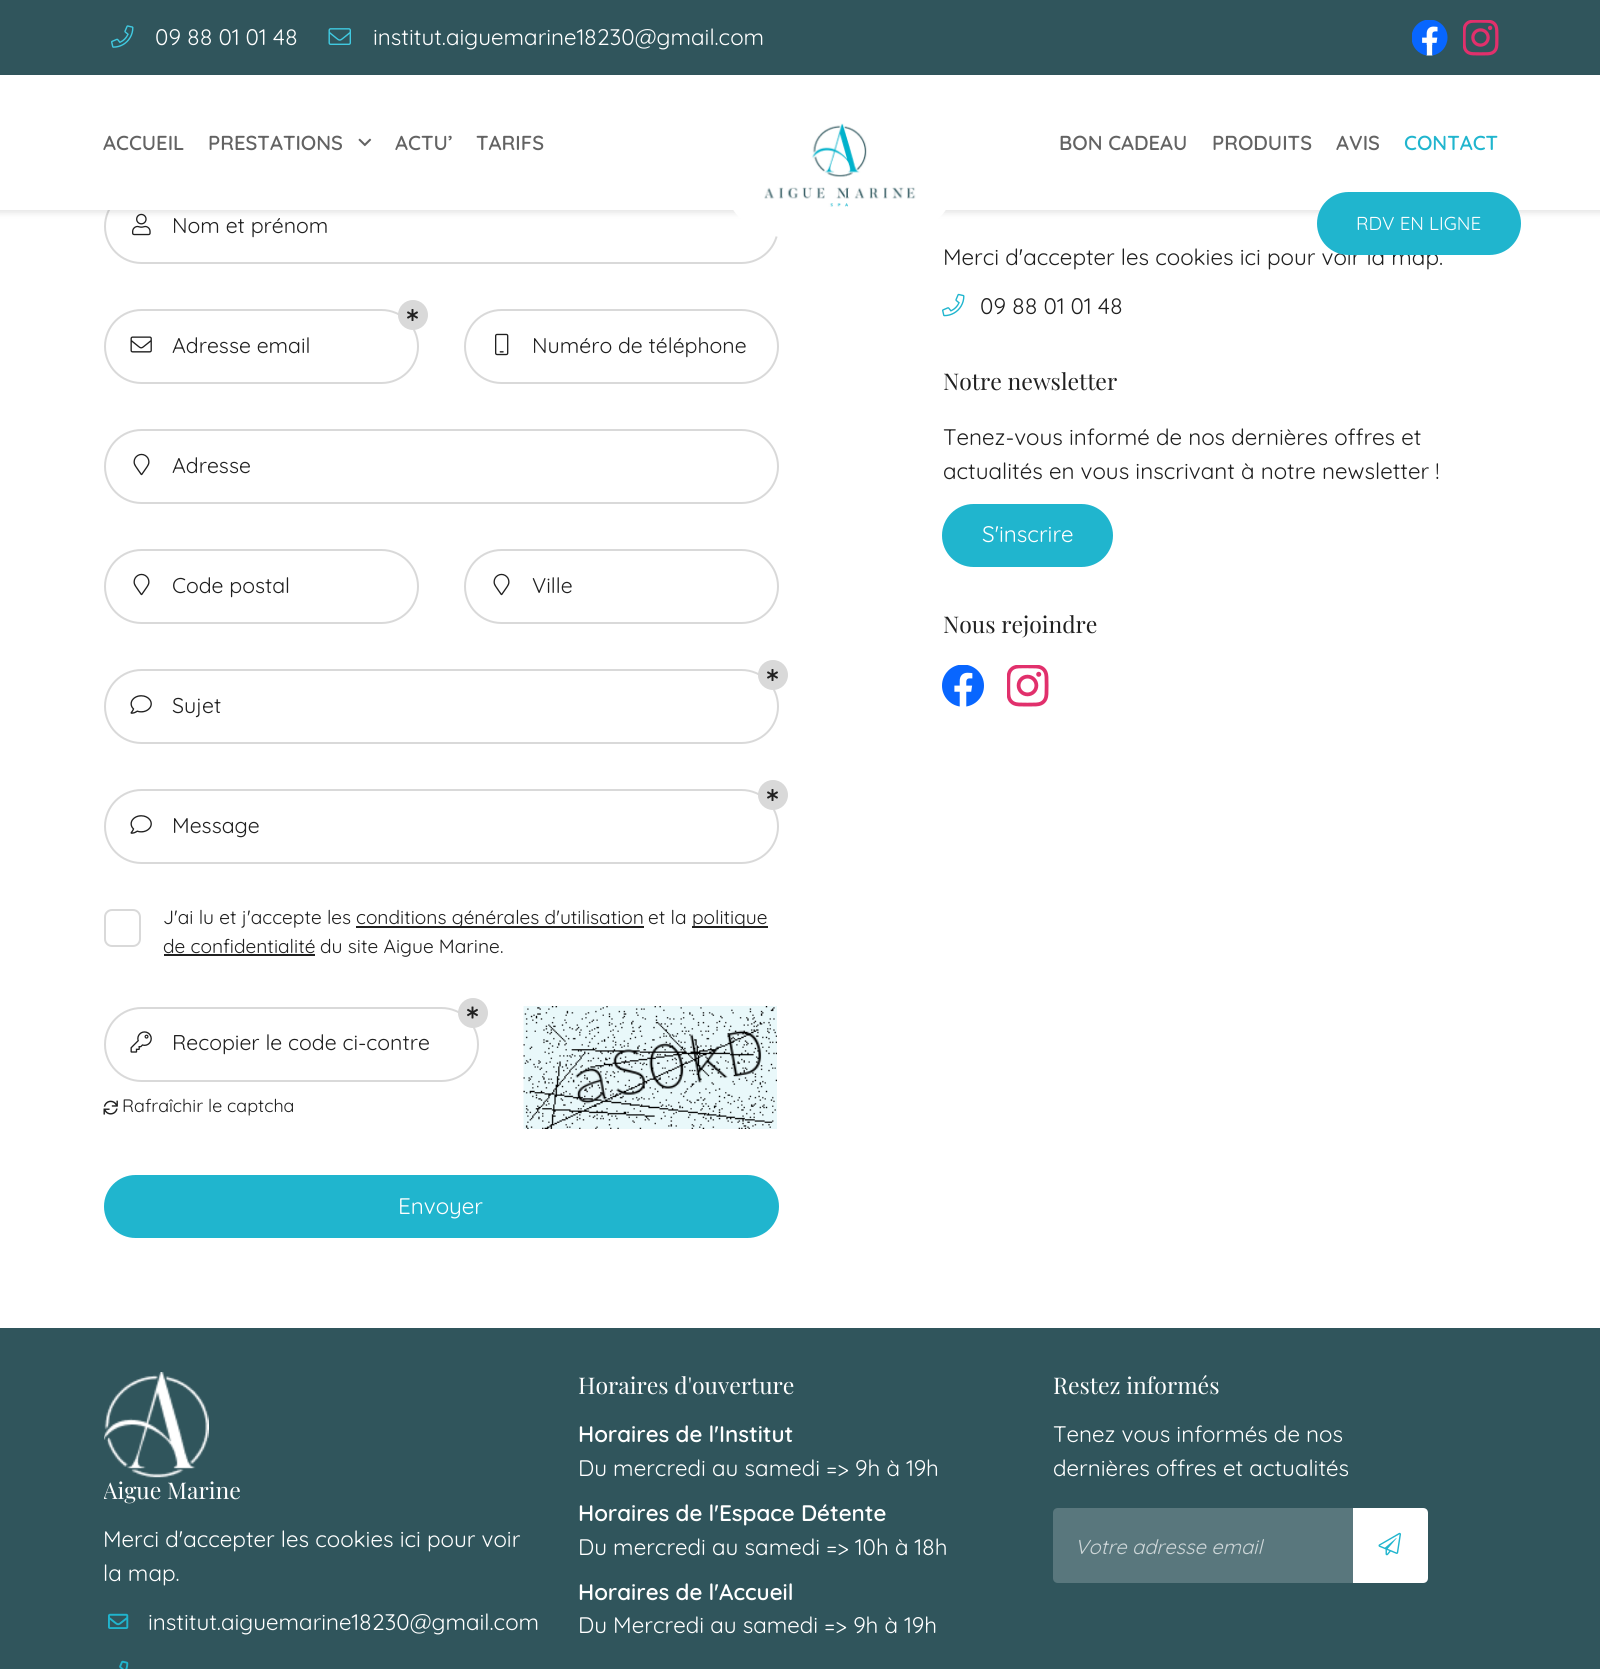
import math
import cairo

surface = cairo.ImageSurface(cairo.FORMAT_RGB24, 1600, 1669)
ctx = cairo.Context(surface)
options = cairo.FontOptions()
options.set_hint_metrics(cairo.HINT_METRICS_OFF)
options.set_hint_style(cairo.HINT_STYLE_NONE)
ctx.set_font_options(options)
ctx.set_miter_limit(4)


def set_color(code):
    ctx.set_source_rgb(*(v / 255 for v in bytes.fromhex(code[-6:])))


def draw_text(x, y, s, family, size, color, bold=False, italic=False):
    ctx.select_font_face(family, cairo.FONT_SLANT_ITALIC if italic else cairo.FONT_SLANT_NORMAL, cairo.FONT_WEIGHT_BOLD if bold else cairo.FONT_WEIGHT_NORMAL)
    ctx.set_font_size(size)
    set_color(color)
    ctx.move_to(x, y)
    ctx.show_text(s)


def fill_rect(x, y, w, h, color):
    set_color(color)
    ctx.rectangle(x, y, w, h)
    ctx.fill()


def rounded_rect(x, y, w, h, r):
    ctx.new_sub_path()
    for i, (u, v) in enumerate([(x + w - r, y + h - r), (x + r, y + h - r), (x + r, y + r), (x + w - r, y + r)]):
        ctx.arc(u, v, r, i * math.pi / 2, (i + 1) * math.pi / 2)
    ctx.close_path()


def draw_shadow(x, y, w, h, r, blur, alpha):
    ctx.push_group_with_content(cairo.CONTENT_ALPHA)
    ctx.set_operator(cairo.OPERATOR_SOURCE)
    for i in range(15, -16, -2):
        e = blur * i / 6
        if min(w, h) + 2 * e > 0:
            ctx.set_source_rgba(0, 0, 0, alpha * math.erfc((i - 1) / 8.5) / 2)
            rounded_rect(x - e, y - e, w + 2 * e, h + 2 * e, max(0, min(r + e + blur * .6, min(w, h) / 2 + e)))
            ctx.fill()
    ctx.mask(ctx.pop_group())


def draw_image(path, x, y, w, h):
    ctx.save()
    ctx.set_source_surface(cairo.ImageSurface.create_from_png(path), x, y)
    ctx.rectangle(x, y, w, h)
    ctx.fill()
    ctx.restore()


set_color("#ffffff")
ctx.paint()
fill_rect(0, 0, 1600, 75, "#30555c")
draw_image("assets/img1.png", 111, 25, 23, 23)
draw_text(155, 45, "09 88 01 01 48", "Quicksand", 22.5, "#ffffff")
draw_image("assets/img2.png", 328, 28, 23, 17)
draw_text(373, 45, "institut.aiguemarine18230@gmail.com", "Quicksand", 22.5, "#ffffff")
draw_image("assets/img3.png", 1412, 20, 36, 36)
draw_image("assets/img4.png", 1463, 20, 36, 36)
rounded_rect(105, 190, 673, 73, 36.5)
set_color("#d9d9d9")
ctx.stroke()
draw_image("assets/img7.png", 132, 213, 19, 23)
set_color("#000000")
draw_shadow(-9, 78, 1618, 135, 0, 3, 0.1)
fill_rect(0, 75, 1600, 135, "#ffffff")
ctx.new_path()
ctx.move_to(806, 105)
ctx.line_to(873, 105)
ctx.curve_to(916, 105, 951, 126, 951, 152)
ctx.line_to(951, 193)
ctx.curve_to(951, 219, 916, 240, 873, 240)
ctx.line_to(806, 240)
ctx.curve_to(763, 240, 728, 219, 728, 193)
ctx.line_to(728, 152)
ctx.curve_to(728, 126, 763, 105, 806, 105)
ctx.close_path()
ctx.fill()
draw_image("assets/img5.png", 764, 123, 152, 84)
draw_text(103, 150, "ACCUEIL", "Quicksand SemiBold", 20.25, "#636363")
draw_text(208, 150, "PRESTATIONS", "Quicksand SemiBold", 20.25, "#636363")
draw_image("assets/img6.png", 358, 138, 14, 9)
draw_text(395, 150, "ACTU’", "Quicksand SemiBold", 20.25, "#636363")
draw_text(476, 150, "TARIFS", "Quicksand SemiBold", 20.25, "#636363")
draw_text(1059, 150, "BON CADEAU", "Quicksand SemiBold", 20.25, "#636363")
draw_text(1212, 150, "PRODUITS", "Quicksand SemiBold", 20.25, "#636363")
draw_text(1336, 150, "AVIS", "Quicksand SemiBold", 20.25, "#636363")
draw_text(1404, 150, "CONTACT", "Quicksand SemiBold", 20.25, "#20b5ce")
draw_text(1267, 265, "pour voir la map.", "Quicksand", 22.5, "#202020")
set_color("#20b5ce")
rounded_rect(1318, 193, 202, 61, 30.5)
ctx.fill_preserve()
ctx.stroke()
draw_text(1356, 230, "RDV EN LIGNE", "Quicksand", 18.75, "#ffffff")
draw_text(172, 233, "Nom et prénom", "Quicksand", 21.4, "#202020")
rounded_rect(105, 310, 313, 73, 36.5)
set_color("#d9d9d9")
ctx.stroke()
ctx.arc(413, 315, 15, 0, 2 * math.pi)
ctx.fill()
draw_image("assets/img8.png", 407, 309, 11, 12)
draw_image("assets/img9.png", 130, 336, 22, 17)
draw_text(172, 353, "Adresse email", "Quicksand", 21.4, "#202020")
rounded_rect(465, 310, 313, 73, 36.5)
set_color("#d9d9d9")
ctx.stroke()
draw_image("assets/img10.png", 495, 333, 14, 23)
draw_text(532, 353, "Numéro de téléphone", "Quicksand", 21.4, "#202020")
rounded_rect(105, 430, 673, 73, 36.5)
set_color("#d9d9d9")
ctx.stroke()
draw_image("assets/img11.png", 133, 453, 17, 23)
draw_text(172, 473, "Adresse", "Quicksand", 21.4, "#202020")
rounded_rect(105, 550, 313, 73, 36.5)
set_color("#d9d9d9")
ctx.stroke()
draw_image("assets/img11.png", 133, 573, 17, 23)
draw_text(172, 593, "Code postal", "Quicksand", 21.4, "#202020")
rounded_rect(465, 550, 313, 73, 36.5)
set_color("#d9d9d9")
ctx.stroke()
draw_image("assets/img11.png", 493, 573, 17, 23)
draw_text(532, 593, "Ville", "Quicksand", 21.4, "#202020")
rounded_rect(105, 670, 673, 73, 36.5)
set_color("#d9d9d9")
ctx.stroke()
ctx.arc(773, 675, 15, 0, 2 * math.pi)
ctx.fill()
draw_image("assets/img8.png", 767, 669, 11, 12)
draw_image("assets/img12.png", 130, 695, 22, 19)
draw_text(172, 713, "Sujet", "Quicksand", 21.4, "#202020")
rounded_rect(105, 790, 673, 73, 36.5)
set_color("#d9d9d9")
ctx.stroke()
ctx.arc(773, 795, 15, 0, 2 * math.pi)
ctx.fill()
draw_image("assets/img8.png", 767, 789, 11, 12)
draw_image("assets/img12.png", 130, 815, 22, 19)
draw_text(172, 833, "Message", "Quicksand", 21.4, "#202020")
rounded_rect(105, 910, 35, 36, 7)
set_color("#d9d9d9")
ctx.stroke()
draw_text(163, 924, "J'ai lu et j'accepte les", "Quicksand", 19.25, "#202020")
fill_rect(356, 926, 288, 2, "#202020")
draw_text(356, 924, "conditions générales d'utilisation", "Quicksand", 19.25, "#202020")
draw_text(648, 924, "et la", "Quicksand", 19.25, "#202020")
fill_rect(692, 926, 76, 2, "#202020")
draw_text(692, 924, "politique", "Quicksand", 19.25, "#202020")
draw_text(163, 953, "de confidentialité", "Quicksand", 19.25, "#202020")
fill_rect(164, 954, 151, 2, "#202020")
draw_text(320, 953, "du site Aigue Marine", "Quicksand", 19.25, "#202020")
draw_text(500, 953, ".", "Quicksand", 19.25, "#202020")
rounded_rect(105, 1008, 373, 73, 36.5)
set_color("#d9d9d9")
ctx.stroke()
ctx.arc(473, 1013, 15, 0, 2 * math.pi)
ctx.fill()
draw_image("assets/img13.png", 467, 1006, 11, 13)
draw_image("assets/img14.png", 130, 1031, 22, 22)
draw_text(172, 1050, "Recopier le code ci-contre", "Quicksand", 21.4, "#202020")
draw_image("assets/img15.png", 103, 1100, 15, 15)
draw_text(122, 1112, "Rafraîchir le captcha", "Quicksand", 18, "#202020")
draw_image("assets/img16.png", 523, 1006, 254, 123)
set_color("#20b5ce")
rounded_rect(105, 1176, 673, 61, 30.5)
ctx.fill_preserve()
ctx.stroke()
draw_text(398, 1214, "Envoyer", "Quicksand", 22.5, "#ffffff")
draw_text(943, 265, "Merci d'accepter les cookies ici", "Quicksand", 22.5, "#202020")
draw_image("assets/img17.png", 942, 293, 23, 24)
draw_text(980, 314, "09 88 01 01 48", "Quicksand", 22.5, "#202020")
draw_text(943, 390, "Notre newsletter", "Playfair Display", 23, "#202020")
draw_text(943, 445, "Tenez-vous informé de nos dernières offres et", "Quicksand", 22.5, "#202020")
draw_text(943, 479, "actualités en vous inscrivant à notre newsletter !", "Quicksand", 22.5, "#202020")
set_color("#20b5ce")
rounded_rect(943, 505, 169, 61, 30.5)
ctx.fill_preserve()
ctx.stroke()
draw_text(982, 542, "S'inscrire", "Quicksand", 22.5, "#ffffff")
draw_text(943, 633, "Nous rejoindre", "Playfair Display", 23, "#202020")
draw_image("assets/img18.png", 942, 665, 42, 42)
draw_image("assets/img19.png", 1007, 665, 42, 42)
fill_rect(0, 1328, 1600, 341, "#30555c")
draw_image("assets/img20.png", 104, 1372, 105, 106)
ctx.save()
ctx.rectangle(104, 1373, 444, 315)
ctx.clip()
draw_text(103, 1499, "Aigue Marine", "Playfair Display", 23, "#ffffff")
ctx.restore()
draw_text(103, 1547, "Merci d'accepter les cookies ici", "Quicksand", 22.5, "#ffffff")
draw_text(427, 1547, "pour voir", "Quicksand", 22.5, "#ffffff")
draw_text(103, 1581, "la map.", "Quicksand", 22.5, "#ffffff")
draw_image("assets/img21.png", 108, 1613, 21, 16)
draw_text(148, 1630, "institut.aiguemarine18230@gmail.com", "Quicksand", 22.5, "#ffffff")
draw_image("assets/img22.png", 119, 1660, 10, 9)
draw_text(578, 1394, "Horaires d'ouverture", "Playfair Display", 23, "#ffffff")
draw_text(578, 1442, "Horaires de l'Institut", "Quicksand SemiBold", 22.5, "#ffffff")
draw_text(578, 1476, "Du mercredi au samedi => 9h à 19h", "Quicksand", 22.5, "#ffffff")
draw_text(578, 1521, "Horaires de l'Espace Détente", "Quicksand SemiBold", 22.5, "#ffffff")
draw_text(578, 1555, "Du mercredi au samedi => 10h à 18h", "Quicksand", 22.5, "#ffffff")
draw_text(578, 1600, "Horaires de l'Accueil", "Quicksand SemiBold", 22.5, "#ffffff")
draw_text(578, 1633, "Du Mercredi au samedi => 9h à 19h", "Quicksand", 22.5, "#ffffff")
draw_text(1053, 1394, "Restez informés", "Playfair Display", 23, "#ffffff")
draw_text(1053, 1442, "Tenez vous informés de nos", "Quicksand", 22.5, "#ffffff")
draw_text(1053, 1476, "dernières offres et actualités", "Quicksand", 22.5, "#ffffff")
set_color("#59777d")
ctx.new_path()
ctx.move_to(1058, 1508)
ctx.line_to(1389, 1508)
ctx.line_to(1389, 1583)
ctx.line_to(1058, 1583)
ctx.curve_to(1055, 1583, 1053, 1581, 1053, 1578)
ctx.line_to(1053, 1513)
ctx.curve_to(1053, 1510, 1055, 1508, 1058, 1508)
ctx.close_path()
ctx.fill()
draw_text(1075, 1554, "Votre adresse email", "Quicksand", 20.25, "#cdd6d8", italic=True)
set_color("#ffffff")
ctx.new_path()
ctx.move_to(1353, 1508)
ctx.line_to(1423, 1508)
ctx.curve_to(1426, 1508, 1428, 1510, 1428, 1513)
ctx.line_to(1428, 1578)
ctx.curve_to(1428, 1581, 1426, 1583, 1423, 1583)
ctx.line_to(1353, 1583)
ctx.close_path()
ctx.fill()
draw_image("assets/img23.png", 1378, 1532, 23, 24)
surface.write_to_png("output.png")
